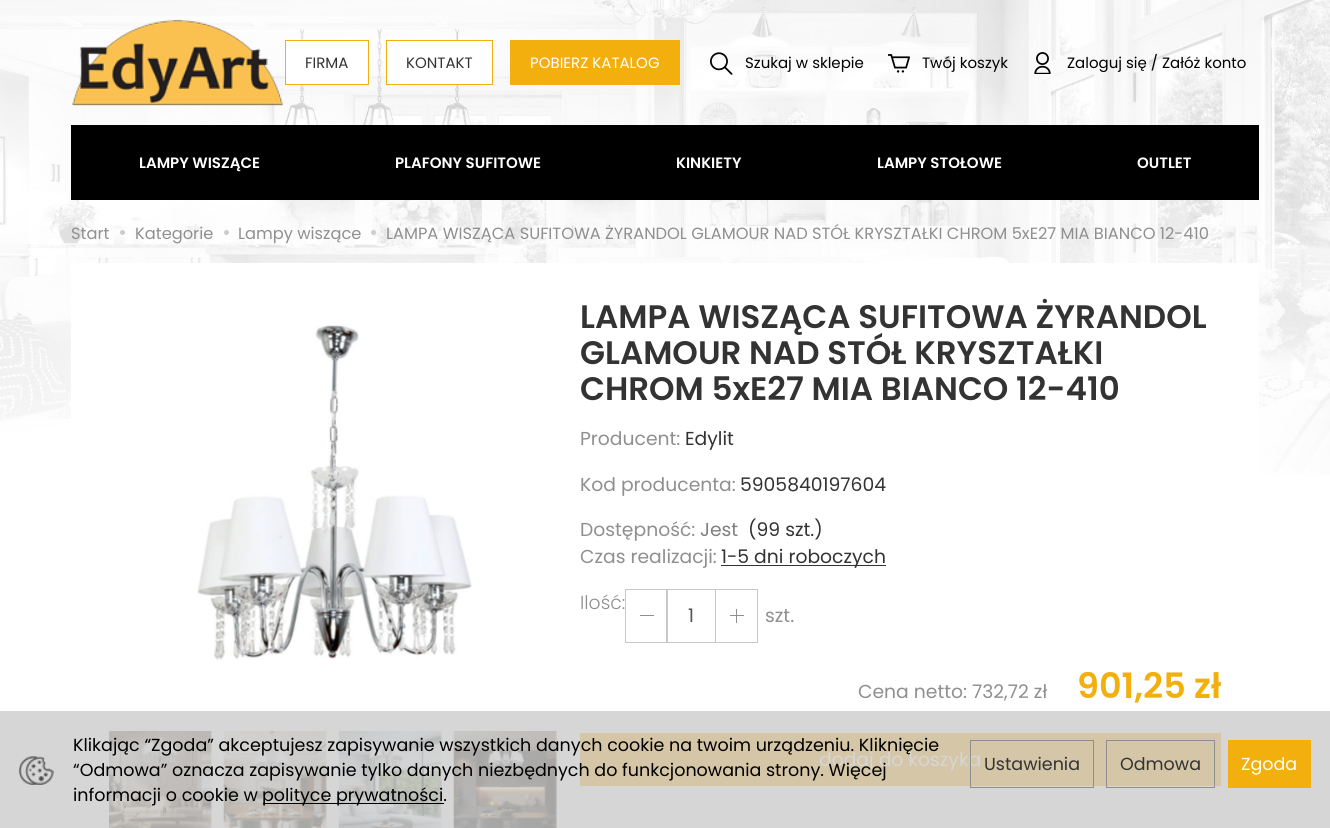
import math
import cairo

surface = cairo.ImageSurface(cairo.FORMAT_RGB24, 1330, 828)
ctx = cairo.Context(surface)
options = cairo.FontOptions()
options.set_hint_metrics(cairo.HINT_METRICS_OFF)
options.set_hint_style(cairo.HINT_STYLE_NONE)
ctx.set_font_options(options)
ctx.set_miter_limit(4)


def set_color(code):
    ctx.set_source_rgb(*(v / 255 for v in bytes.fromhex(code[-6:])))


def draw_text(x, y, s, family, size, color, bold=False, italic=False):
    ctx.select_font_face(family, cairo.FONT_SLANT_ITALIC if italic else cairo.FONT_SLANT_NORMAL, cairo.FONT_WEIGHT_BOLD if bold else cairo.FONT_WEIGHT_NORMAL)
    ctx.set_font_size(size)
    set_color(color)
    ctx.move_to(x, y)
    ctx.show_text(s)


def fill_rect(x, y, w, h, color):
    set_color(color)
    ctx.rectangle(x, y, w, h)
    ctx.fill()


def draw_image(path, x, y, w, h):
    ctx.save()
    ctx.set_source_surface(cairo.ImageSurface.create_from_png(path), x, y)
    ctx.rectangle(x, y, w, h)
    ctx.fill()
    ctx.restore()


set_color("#ffffff")
ctx.paint()
fill_rect(0, 711, 1330, 117, "#d6d6d6")
draw_image("assets/img1.png", 0, 0, 1330, 475)
draw_image("assets/img2.png", 72, 19, 211, 87)
set_color("#ffffff")
ctx.rectangle(285.5, 40.5, 83, 44)
ctx.fill_preserve()
set_color("#f2af0d")
ctx.set_line_width(1)
ctx.stroke()
draw_text(305, 68, "FIRMA", "Poppins", 15, "#333333")
set_color("#ffffff")
ctx.rectangle(386.5, 40.5, 106, 44)
ctx.fill_preserve()
set_color("#f2af0d")
ctx.stroke()
draw_text(406, 68, "KONTAKT", "Poppins", 15, "#333333")
fill_rect(510, 40, 170, 45, "#f2af0d")
draw_text(530, 68, "POBIERZ KATALOG", "Poppins", 15, "#ffffff")
draw_image("assets/img3.png", 710, 52, 23, 23)
draw_text(745, 68, "Szukaj w sklepie", "Poppins", 15, "#000000")
draw_image("assets/img4.png", 888, 54, 22, 19)
draw_text(922, 68, "Twój koszyk", "Poppins", 15, "#000000")
draw_image("assets/img5.png", 1034, 52, 17, 22)
draw_text(1067, 68, "Zaloguj się / Załóż konto", "Poppins", 15, "#000000")
fill_rect(71, 125, 1188, 75, "#000000")
draw_text(139, 168, "LAMPY WISZĄCE", "Poppins SemiBold", 15, "#ffffff")
draw_text(395, 168, "PLAFONY SUFITOWE", "Poppins SemiBold", 15, "#ffffff")
draw_text(676, 168, "KINKIETY", "Poppins SemiBold", 15, "#ffffff")
draw_text(877, 168, "LAMPY STOŁOWE", "Poppins SemiBold", 15, "#ffffff")
draw_text(1137, 168, "OUTLET", "Poppins SemiBold", 15, "#ffffff")
draw_text(71, 239, "Start", "Poppins", 16.25, "#8f8f8f")
set_color("#cccccc")
ctx.new_path()
ctx.arc(122.5, 232.5, 2.5, 0, 2 * math.pi)
ctx.fill()
draw_text(135, 239, "Kategorie", "Poppins", 16.25, "#8f8f8f")
set_color("#cccccc")
ctx.new_path()
ctx.arc(226.5, 232.5, 2.5, 0, 2 * math.pi)
ctx.fill()
draw_text(238, 239, "Lampy wiszące", "Poppins", 16.25, "#8f8f8f")
set_color("#cccccc")
ctx.new_path()
ctx.arc(373.5, 232.5, 2.5, 0, 2 * math.pi)
ctx.fill()
draw_text(386, 239, "LAMPA WISZĄCA SUFITOWA ŻYRANDOL GLAMOUR NAD STÓŁ KRYSZTAŁKI CHROM 5xE27 MIA BIANCO 12-410", "Poppins", 16.25, "#8f8f8f")
fill_rect(71, 263, 1188, 212, "#ffffff")
draw_image("assets/img6.png", 197, 324, 275, 336)
draw_image("assets/img7.png", 109, 731, 103, 97)
draw_image("assets/img8.png", 223, 731, 104, 97)
draw_image("assets/img9.png", 338, 731, 104, 97)
draw_image("assets/img10.png", 453, 731, 104, 97)
draw_text(580, 328, "LAMPA WISZĄCA SUFITOWA ŻYRANDOL", "Poppins SemiBold", 32.5, "#333333")
draw_text(580, 364, "GLAMOUR NAD STÓŁ KRYSZTAŁKI", "Poppins SemiBold", 32.5, "#333333")
draw_text(580, 400, "CHROM 5xE27 MIA BIANCO 12-410", "Poppins SemiBold", 32.5, "#333333")
draw_text(580, 445, "Producent:", "Poppins", 18.75, "#8f8f8f")
draw_text(685, 445, "Edylit", "Poppins", 18.75, "#333333")
draw_text(580, 491, "Kod producenta:", "Poppins", 18.75, "#8f8f8f")
draw_text(740, 491, "5905840197604", "Poppins", 18.75, "#333333")
draw_text(580, 536, "Dostępność:", "Poppins", 18.75, "#8f8f8f")
draw_text(700, 536, "Jest", "Poppins", 18.75, "#808080")
draw_text(748, 536, "(99 szt.)", "Poppins", 18.75, "#333333")
draw_text(580, 563, "Czas realizacji:", "Poppins", 18.75, "#8f8f8f")
fill_rect(721, 565, 165, 1, "#333333")
draw_text(721, 563, "1-5 dni roboczych", "Poppins", 18.75, "#333333")
draw_text(580, 609, "Ilość:", "Poppins Light", 18.75, "#8f8f8f")
ctx.rectangle(666.5, 589.5, 49, 53)
set_color("#c8c8c8")
ctx.stroke()
ctx.rectangle(625.5, 589.5, 42, 53)
ctx.stroke()
fill_rect(640, 615, 14, 1, "#8f8f8f")
ctx.rectangle(715.5, 589.5, 42, 53)
set_color("#c8c8c8")
ctx.stroke()
fill_rect(730, 615, 14, 1, "#8f8f8f")
fill_rect(736, 609, 1, 14, "#8f8f8f")
draw_text(688, 622, "1", "Poppins", 18.75, "#555555")
draw_text(765, 622, "szt.", "Poppins", 18.75, "#8f8f8f")
draw_text(858, 698, "Cena netto: 732,72 zł", "Poppins", 18.75, "#8f8f8f")
draw_text(1077, 698, "901,25 zł", "Poppins SemiBold", 35, "#f2af0d")
fill_rect(580, 733, 641, 53, "#d4c6a6")
draw_text(819, 766, "dodaj do koszyka", "Poppins", 18.75, "#d6d6d6")
draw_image("assets/img11.png", 19, 756, 35, 29)
draw_text(73, 751, "Klikając “Zgoda” akceptujesz zapisywanie wszystkich danych cookie na twoim urządzeniu. Kliknięcie", "Poppins", 17.5, "#000000")
draw_text(73, 776, "“Odmowa” oznacza zapisywanie tylko danych niezbędnych do funkcjonowania strony. Więcej", "Poppins", 17.5, "#000000")
draw_text(73, 801, "informacji o cookie w", "Poppins", 17.5, "#000000")
fill_rect(263, 803, 181, 1, "#000000")
draw_text(262, 801, "polityce prywatności.", "Poppins", 17.5, "#000000")
ctx.rectangle(970.5, 740.5, 123, 47)
set_color("#8f8f8f")
ctx.stroke()
draw_text(984, 770, "Ustawienia", "Poppins", 17.5, "#333333")
ctx.rectangle(1106.5, 740.5, 108, 47)
set_color("#8f8f8f")
ctx.stroke()
draw_text(1120, 770, "Odmowa", "Poppins", 17.5, "#333333")
fill_rect(1228, 740, 83, 48, "#f2af0d")
draw_text(1241, 770, "Zgoda", "Poppins", 17.5, "#ffffff")
surface.write_to_png("output.png")
